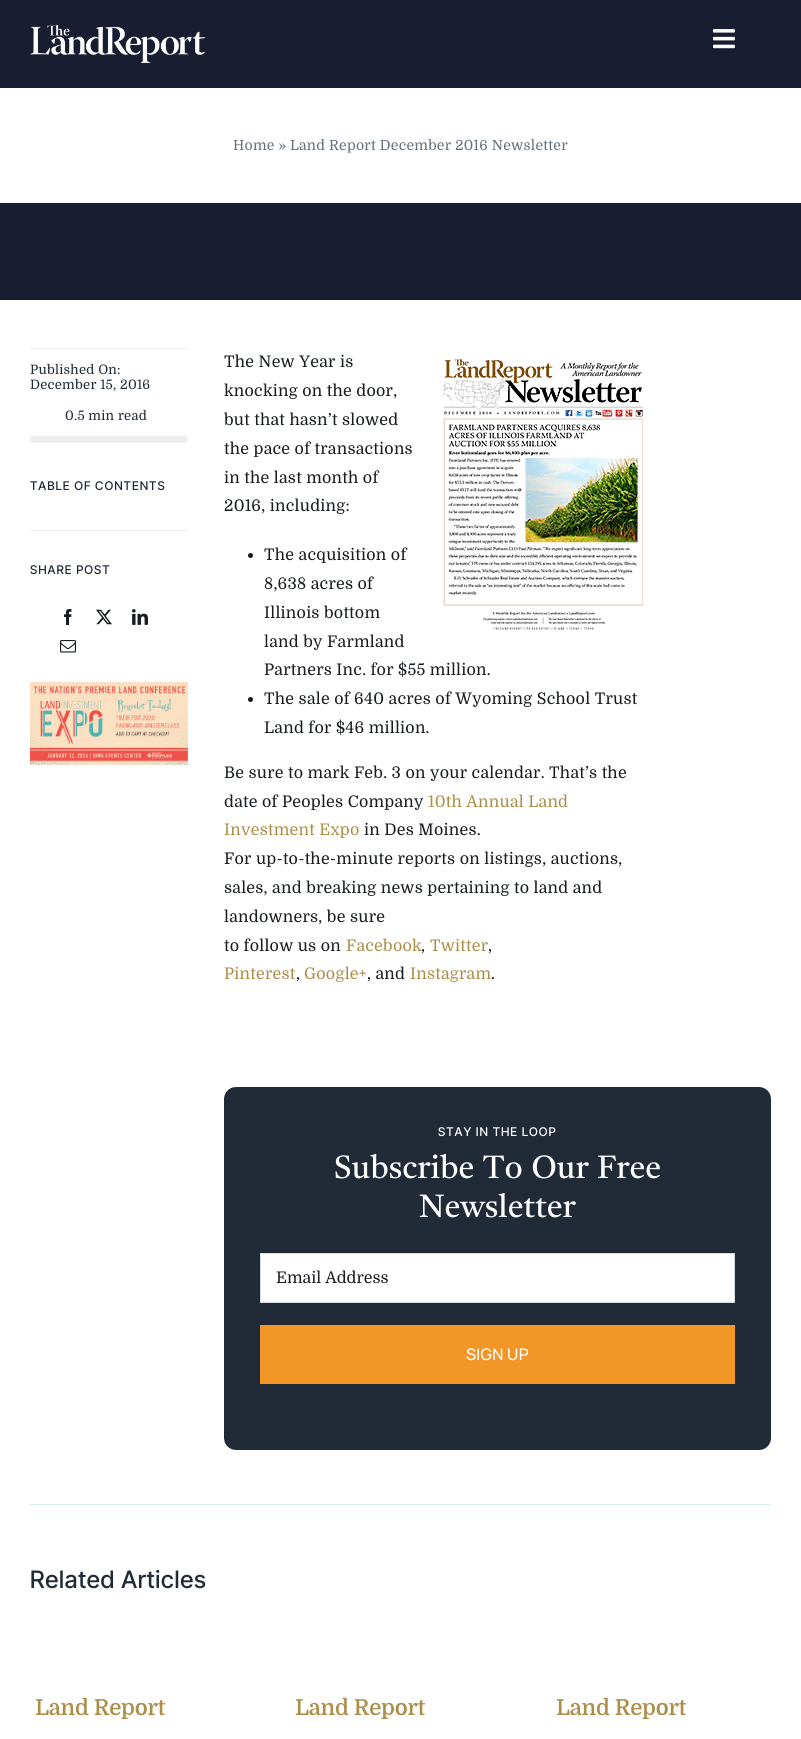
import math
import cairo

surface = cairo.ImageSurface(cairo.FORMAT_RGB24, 801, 1739)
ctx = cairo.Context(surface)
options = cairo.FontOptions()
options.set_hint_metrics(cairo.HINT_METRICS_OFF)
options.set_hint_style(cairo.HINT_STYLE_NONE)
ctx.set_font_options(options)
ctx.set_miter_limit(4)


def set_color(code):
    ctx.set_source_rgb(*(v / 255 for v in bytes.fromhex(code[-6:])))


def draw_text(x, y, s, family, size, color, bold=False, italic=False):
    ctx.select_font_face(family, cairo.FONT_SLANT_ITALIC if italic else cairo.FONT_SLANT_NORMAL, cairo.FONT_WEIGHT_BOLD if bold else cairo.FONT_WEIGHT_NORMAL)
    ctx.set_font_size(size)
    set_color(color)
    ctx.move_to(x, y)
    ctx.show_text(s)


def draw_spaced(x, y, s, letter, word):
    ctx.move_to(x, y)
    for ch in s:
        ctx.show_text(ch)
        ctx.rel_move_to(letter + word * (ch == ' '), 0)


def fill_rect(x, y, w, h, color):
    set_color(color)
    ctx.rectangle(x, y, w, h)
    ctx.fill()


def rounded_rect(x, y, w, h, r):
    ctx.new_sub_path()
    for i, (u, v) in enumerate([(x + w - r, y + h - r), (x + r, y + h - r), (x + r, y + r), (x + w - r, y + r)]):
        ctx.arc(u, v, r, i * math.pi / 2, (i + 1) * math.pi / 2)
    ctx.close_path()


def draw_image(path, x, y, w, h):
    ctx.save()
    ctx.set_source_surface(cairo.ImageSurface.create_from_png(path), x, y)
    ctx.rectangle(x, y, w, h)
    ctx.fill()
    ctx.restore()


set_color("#ffffff")
ctx.paint()
fill_rect(0, 0, 801, 88, "#181d31")
draw_image("assets/img1.png", 30, 25, 175, 38)
draw_image("assets/img2.png", 713, 29, 22, 20)
ctx.select_font_face("Domine")
ctx.set_font_size(14)
set_color("#63717f")
draw_spaced(233, 150, "Home » Land Report December 2016 Newsletter", 0.25, 0)
fill_rect(0, 203, 801, 97, "#181d31")
fill_rect(30, 348, 158, 1, "#eeeeee")
fill_rect(30, 436, 158, 1, "#eeeeee")
ctx.set_font_size(13)
set_color("#202b37")
draw_spaced(30, 374, "Published On:", 0.25, 0)
draw_spaced(30, 389, "December 15, 2016", 0.25, 0)
draw_spaced(65, 420, "0.5 min read", 0.25, 0)
set_color("#efeeed")
rounded_rect(30, 437, 158, 6, 3)
ctx.fill()
ctx.select_font_face("Inter Tight Medium")
ctx.set_font_size(12)
set_color("#202b37")
draw_spaced(30, 490, "TABLE OF CONTENTS", 1, 0)
fill_rect(30, 530, 158, 1, "#efeeed")
set_color("#202b37")
draw_spaced(30, 574, "SHARE POST", 1, 0)
draw_image("assets/img3.png", 64, 609, 8, 16)
draw_image("assets/img4.png", 96, 609, 16, 16)
draw_image("assets/img5.png", 132, 609, 16, 16)
draw_image("assets/img6.png", 60, 640, 16, 13)
draw_image("assets/img7.png", 30, 682, 158, 83)
ctx.select_font_face("Domine")
ctx.set_font_size(16)
set_color("#191d21")
draw_spaced(224, 367, "The New Year is", 0.25, 0)
draw_image("assets/img8.png", 443, 359, 200, 271)
draw_spaced(224, 396, "knocking on the door,", 0.25, 0)
draw_spaced(224, 425, "but that hasn’t slowed", 0.25, 0)
draw_spaced(224, 454, "the pace of transactions", 0.25, 0)
draw_spaced(224, 483, "in the last month of", 0.25, 0)
draw_spaced(224, 511, "2016, including:", 0.25, 0)
ctx.new_path()
ctx.arc(250.5, 555.5, 2.5, 0, 2 * math.pi)
ctx.fill()
draw_spaced(264, 560, "The acquisition of", 0.25, 0)
draw_spaced(264, 589, "8,638 acres of", 0.25, 0)
draw_spaced(264, 618, "Illinois bottom", 0.25, 0)
draw_spaced(264, 647, "land by Farmland", 0.25, 0)
draw_spaced(264, 675, "Partners Inc. for $55 million.", 0.25, 0)
ctx.new_path()
ctx.arc(250.5, 699.5, 2.5, 0, 2 * math.pi)
ctx.fill()
draw_spaced(264, 704, "The sale of 640 acres of Wyoming School Trust", 0.25, 0)
draw_spaced(264, 733, "Land for $46 million.", 0.25, 0)
draw_spaced(224, 778, "Be sure to mark Feb. 3 on your calendar. That’s the", 0.25, 0)
draw_spaced(224, 807, "date of Peoples Company", 0.25, 0)
set_color("#ac8e49")
draw_spaced(428, 807, "10th Annual Land", 0.25, 0)
draw_spaced(224, 835, "Investment Expo", 0.25, 0)
set_color("#191d21")
draw_spaced(364, 835, "in Des Moines.", 0.25, 0)
draw_spaced(224, 864, "For up-to-the-minute reports on listings, auctions,", 0.25, 0)
draw_spaced(224, 893, "sales, and breaking news pertaining to land and", 0.25, 0)
draw_spaced(224, 922, "landowners, be sure", 0.25, 0)
draw_spaced(224, 951, "to follow us on", 0.25, 0)
set_color("#ac8e49")
draw_spaced(346, 951, "Facebook", 0.25, 0)
set_color("#191d21")
draw_spaced(421, 951, ",", 0.25, 0)
set_color("#ac8e49")
draw_spaced(430, 951, "Twitter", 0.25, 0)
set_color("#191d21")
draw_spaced(488, 951, ",", 0.25, 0)
set_color("#ac8e49")
draw_spaced(224, 979, "Pinterest", 0.25, 0)
set_color("#191d21")
draw_spaced(296, 979, ",", 0.25, 0)
set_color("#ac8e49")
draw_spaced(304, 979, "Google+", 0.25, 0)
set_color("#191d21")
draw_spaced(367, 979, ", and", 0.25, 0)
set_color("#ac8e49")
draw_spaced(410, 979, "Instagram", 0.25, 0)
set_color("#191d21")
draw_spaced(491, 979, ".", 0.25, 0)
set_color("#202b37")
rounded_rect(224, 1087, 547, 363, 12)
ctx.fill()
ctx.select_font_face("Inter Tight Medium")
ctx.set_font_size(12)
set_color("#ffffff")
draw_spaced(438, 1136, "STAY IN THE LOOP", 1, 0)
draw_text(334, 1178, "Subscribe To Our Free", "Tiro Bangla", 32, "#ffffff")
draw_text(419, 1217, "Newsletter", "Tiro Bangla", 32, "#ffffff")
ctx.rectangle(260.5, 1253.5, 474, 49)
ctx.fill_preserve()
set_color("#d2dbe2")
ctx.set_line_width(1)
ctx.stroke()
draw_text(276, 1283, "Email Address", "Domine", 16, "#191d21")
fill_rect(260, 1325, 475, 59, "#f29727")
ctx.select_font_face("Manrope Medium")
set_color("#ffffff")
draw_spaced(466, 1360, "SIGN UP", 0.25, 0)
fill_rect(30, 1504, 741, 1, "#d2ebeb")
ctx.select_font_face("Inter Tight Medium")
ctx.set_font_size(24)
set_color("#202b37")
draw_spaced(30, 1588, "Related Articles", 0.75, 0)
ctx.select_font_face("Domine SemiBold")
ctx.set_font_size(22)
set_color("#ac8e49")
draw_spaced(35, 1715, "Land Report", -0.25, 0)
draw_spaced(295, 1715, "Land Report", -0.25, 0)
draw_spaced(556, 1715, "Land Report", -0.25, 0)
surface.write_to_png("output.png")
